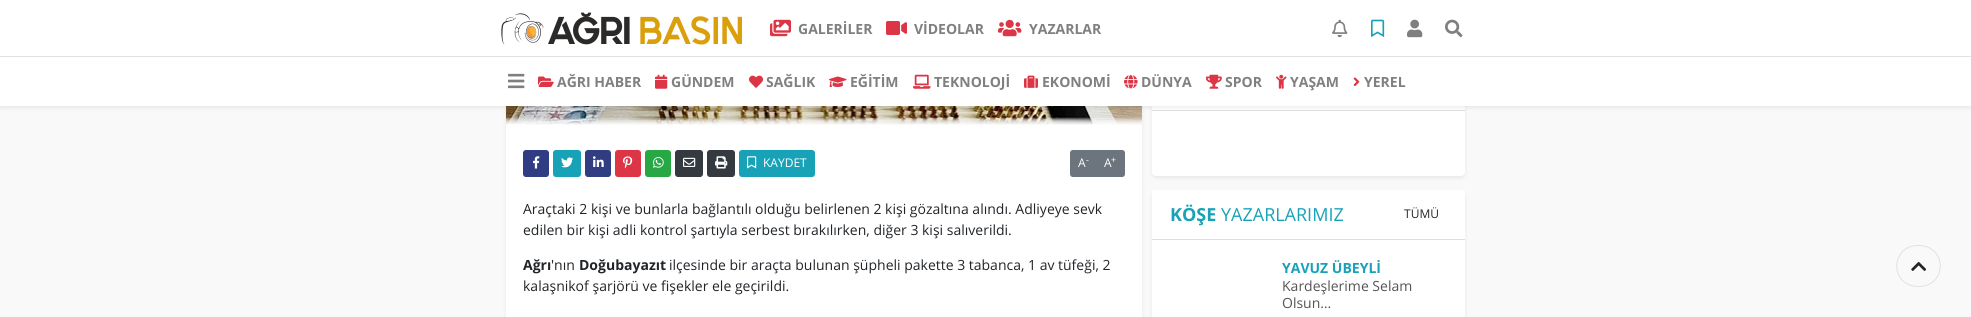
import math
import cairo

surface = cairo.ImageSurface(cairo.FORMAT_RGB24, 1971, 317)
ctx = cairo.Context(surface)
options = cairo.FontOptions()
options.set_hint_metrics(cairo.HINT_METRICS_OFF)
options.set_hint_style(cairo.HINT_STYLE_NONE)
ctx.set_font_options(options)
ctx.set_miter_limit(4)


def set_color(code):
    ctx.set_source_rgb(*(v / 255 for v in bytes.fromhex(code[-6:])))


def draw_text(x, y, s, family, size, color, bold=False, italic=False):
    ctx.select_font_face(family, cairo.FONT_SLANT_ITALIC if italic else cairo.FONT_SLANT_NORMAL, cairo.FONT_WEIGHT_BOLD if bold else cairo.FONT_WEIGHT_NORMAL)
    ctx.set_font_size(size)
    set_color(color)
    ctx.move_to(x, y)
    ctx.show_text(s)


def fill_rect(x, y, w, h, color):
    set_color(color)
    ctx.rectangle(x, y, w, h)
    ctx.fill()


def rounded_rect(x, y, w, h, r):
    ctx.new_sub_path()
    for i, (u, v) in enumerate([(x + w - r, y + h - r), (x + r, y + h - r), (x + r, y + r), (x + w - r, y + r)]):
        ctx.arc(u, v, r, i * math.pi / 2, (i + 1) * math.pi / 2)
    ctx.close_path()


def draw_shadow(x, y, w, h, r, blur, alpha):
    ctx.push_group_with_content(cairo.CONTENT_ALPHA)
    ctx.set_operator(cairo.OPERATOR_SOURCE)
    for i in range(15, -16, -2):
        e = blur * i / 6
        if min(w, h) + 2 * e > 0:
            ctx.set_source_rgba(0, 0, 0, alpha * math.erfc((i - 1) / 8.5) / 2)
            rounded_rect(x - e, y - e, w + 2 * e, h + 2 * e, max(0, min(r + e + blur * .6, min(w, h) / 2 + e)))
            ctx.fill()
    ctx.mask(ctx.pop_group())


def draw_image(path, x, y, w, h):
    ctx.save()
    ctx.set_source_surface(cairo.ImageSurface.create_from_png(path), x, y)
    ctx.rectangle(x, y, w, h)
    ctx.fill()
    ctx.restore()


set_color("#f9f9f9")
ctx.paint()
set_color("#000000")
draw_shadow(506, -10, 636, 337, 4, 2, 0.07)
draw_image("assets/img20.png", 506, 106, 636, 19)
draw_shadow(1152, 64, 313, 114, 4, 2, 0.07)
set_color("#ffffff")
rounded_rect(1152, 62, 313, 114, 4)
ctx.fill()
fill_rect(1152, 110, 313, 1, "#dfdfdf")
set_color("#000000")
draw_shadow(0, 2, 1971, 106, 0, 2, 0.07)
fill_rect(0, 0, 1971, 106, "#ffffff")
fill_rect(0, 56, 1971, 1, "#dee2e6")
draw_image("assets/img1.png", 501, 12, 241, 33)
draw_image("assets/img2.png", 770, 19, 21, 18)
draw_text(798, 34, "GALERİLER", "Open Sans", 14, "#808080", bold=True)
draw_image("assets/img3.png", 886, 21, 21, 14)
draw_text(914, 34, "VİDEOLAR", "Open Sans", 14, "#808080", bold=True)
draw_image("assets/img4.png", 998, 19, 24, 18)
draw_text(1029, 34, "YAZARLAR", "Open Sans", 14, "#808080", bold=True)
draw_image("assets/img5.png", 1332, 19, 16, 19)
draw_image("assets/img6.png", 1371, 19, 14, 19)
draw_image("assets/img7.png", 1407, 19, 16, 19)
draw_image("assets/img8.png", 1445, 19, 18, 19)
draw_image("assets/img9.png", 508, 73, 17, 16)
draw_image("assets/img10.png", 538, 76, 16, 11)
draw_text(557, 87, "AĞRI HABER", "Open Sans", 14, "#808080", bold=True)
draw_image("assets/img11.png", 655, 74, 13, 15)
draw_text(671, 87, "GÜNDEM", "Open Sans", 14, "#808080", bold=True)
draw_image("assets/img12.png", 749, 75, 14, 13)
draw_text(766, 87, "SAĞLIK", "Open Sans", 14, "#808080", bold=True)
draw_image("assets/img13.png", 829, 76, 18, 11)
draw_text(850, 87, "EĞİTİM", "Open Sans", 14, "#808080", bold=True)
draw_image("assets/img14.png", 913, 74, 18, 15)
draw_text(934, 87, "TEKNOLOJİ", "Open Sans", 14, "#808080", bold=True)
draw_image("assets/img15.png", 1024, 75, 14, 13)
draw_text(1042, 87, "EKONOMİ", "Open Sans", 14, "#808080", bold=True)
draw_image("assets/img16.png", 1124, 75, 14, 14)
draw_text(1141, 87, "DÜNYA", "Open Sans", 14, "#808080", bold=True)
draw_image("assets/img17.png", 1206, 74, 16, 15)
draw_text(1225, 87, "SPOR", "Open Sans", 14, "#808080", bold=True)
draw_image("assets/img18.png", 1276, 74, 11, 15)
draw_text(1290, 87, "YAŞAM", "Open Sans", 14, "#808080", bold=True)
draw_image("assets/img19.png", 1353, 77, 7, 10)
draw_text(1364, 87, "YEREL", "Open Sans", 14, "#808080", bold=True)
fill_rect(506, 125, 636, 192, "#ffffff")
set_color("#303d83")
rounded_rect(523.5, 150.5, 25, 26, 2.5)
ctx.fill_preserve()
ctx.set_line_width(1)
ctx.stroke()
draw_image("assets/img21.png", 533, 156, 7, 13)
set_color("#17a2b8")
rounded_rect(553.5, 150.5, 27, 26, 2.5)
ctx.fill_preserve()
ctx.stroke()
draw_image("assets/img22.png", 561, 157, 13, 11)
set_color("#303d83")
rounded_rect(585.5, 150.5, 25, 26, 2.5)
ctx.fill_preserve()
ctx.stroke()
draw_image("assets/img23.png", 593, 156, 11, 11)
set_color("#dc3545")
rounded_rect(615.5, 150.5, 25, 26, 2.5)
ctx.fill_preserve()
ctx.stroke()
draw_image("assets/img24.png", 623, 156, 10, 13)
set_color("#28a745")
rounded_rect(645.5, 150.5, 25, 26, 2.5)
ctx.fill_preserve()
ctx.stroke()
draw_image("assets/img25.png", 653, 157, 11, 11)
set_color("#343a40")
rounded_rect(675.5, 150.5, 27, 26, 2.5)
ctx.fill_preserve()
ctx.stroke()
draw_image("assets/img26.png", 683, 157, 13, 10)
rounded_rect(707.5, 150.5, 27, 26, 2.5)
ctx.fill_preserve()
ctx.stroke()
draw_image("assets/img27.png", 715, 156, 13, 13)
set_color("#17a2b8")
rounded_rect(739.5, 150.5, 75, 26, 2.5)
ctx.fill_preserve()
ctx.stroke()
draw_image("assets/img28.png", 747, 156, 10, 13)
draw_text(763, 167, "KAYDET", "Open Sans", 12, "#ffffff")
set_color("#6c757d")
ctx.new_path()
ctx.move_to(1073, 150.5)
ctx.line_to(1096.5, 150.5)
ctx.line_to(1096.5, 176.5)
ctx.line_to(1073, 176.5)
ctx.curve_to(1071.5, 176.5, 1070.5, 175.5, 1070.5, 174)
ctx.line_to(1070.5, 153)
ctx.curve_to(1070.5, 151.5, 1071.5, 150.5, 1073, 150.5)
ctx.close_path()
ctx.fill_preserve()
ctx.stroke()
draw_text(1078, 167, "A", "Open Sans", 12, "#ffffff")
draw_text(1086, 163, "-", "Open Sans", 9, "#ffffff")
set_color("#6c757d")
ctx.new_path()
ctx.move_to(1096.5, 150.5)
ctx.line_to(1122, 150.5)
ctx.curve_to(1123.5, 150.5, 1124.5, 151.5, 1124.5, 153)
ctx.line_to(1124.5, 174)
ctx.curve_to(1124.5, 175.5, 1123.5, 176.5, 1122, 176.5)
ctx.line_to(1096.5, 176.5)
ctx.close_path()
ctx.fill_preserve()
ctx.stroke()
draw_text(1104, 167, "A", "Open Sans", 12, "#ffffff")
draw_text(1111, 163, "+", "Open Sans", 9, "#ffffff")
draw_text(523, 214, "Araçtaki 2 kişi ve bunlarla bağlantılı olduğu belirlenen 2 kişi gözaltına alındı. Adliyeye sevk", "Open Sans", 14, "#212529")
draw_text(523, 235, "edilen bir kişi adli kontrol şartıyla serbest bırakılırken, diğer 3 kişi salıverildi.", "Open Sans", 14, "#212529")
draw_text(523, 270, "Ağrı", "Open Sans", 14, "#212529", bold=True)
draw_text(551, 270, "'nın", "Open Sans", 14, "#212529")
draw_text(579, 270, "Doğubayazıt", "Open Sans", 14, "#212529", bold=True)
draw_text(669, 270, "ilçesinde bir araçta bulunan şüpheli pakette 3 tabanca, 1 av tüfeği, 2", "Open Sans", 14, "#212529")
draw_text(523, 291, "kalaşnikof şarjörü ve fişekler ele geçirildi.", "Open Sans", 14, "#212529")
set_color("#000000")
draw_shadow(1152, 192, 313, 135, 4, 2, 0.07)
set_color("#ffffff")
rounded_rect(1152, 190, 313, 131, 4)
ctx.fill()
ctx.new_path()
ctx.move_to(1154.5, 190)
ctx.line_to(1462.5, 190)
ctx.curve_to(1464, 190, 1465, 191, 1465, 192.5)
ctx.line_to(1465, 240)
ctx.line_to(1152, 240)
ctx.line_to(1152, 192.5)
ctx.curve_to(1152, 191, 1153, 190, 1154.5, 190)
ctx.close_path()
ctx.fill()
fill_rect(1152, 239, 313, 1, "#dfdfdf")
draw_text(1170, 221, "KÖŞE", "Open Sans", 18, "#17a2b8", bold=True)
draw_text(1221, 221, "YAZARLARIMIZ", "Open Sans", 18, "#17a2b8")
draw_text(1404, 218, "TÜMÜ", "Open Sans", 12, "#212529")
draw_text(1282, 273, "YAVUZ ÜBEYLİ", "Open Sans", 14, "#17a2b8", bold=True)
draw_text(1282, 291, "Kardeşlerime Selam", "Open Sans", 14, "#555555")
draw_text(1282, 308, "Olsun…", "Open Sans", 14, "#555555")
ctx.new_path()
ctx.move_to(1918.5, 245.5)
ctx.curve_to(1947.5, 245.5, 1947.5, 286.5, 1918.5, 286.5)
ctx.curve_to(1889.5, 286.5, 1889.5, 245.5, 1918.5, 245.5)
ctx.close_path()
set_color("#dee2e6")
ctx.stroke()
draw_image("assets/img29.png", 1911, 261, 16, 10)
surface.write_to_png("output.png")
